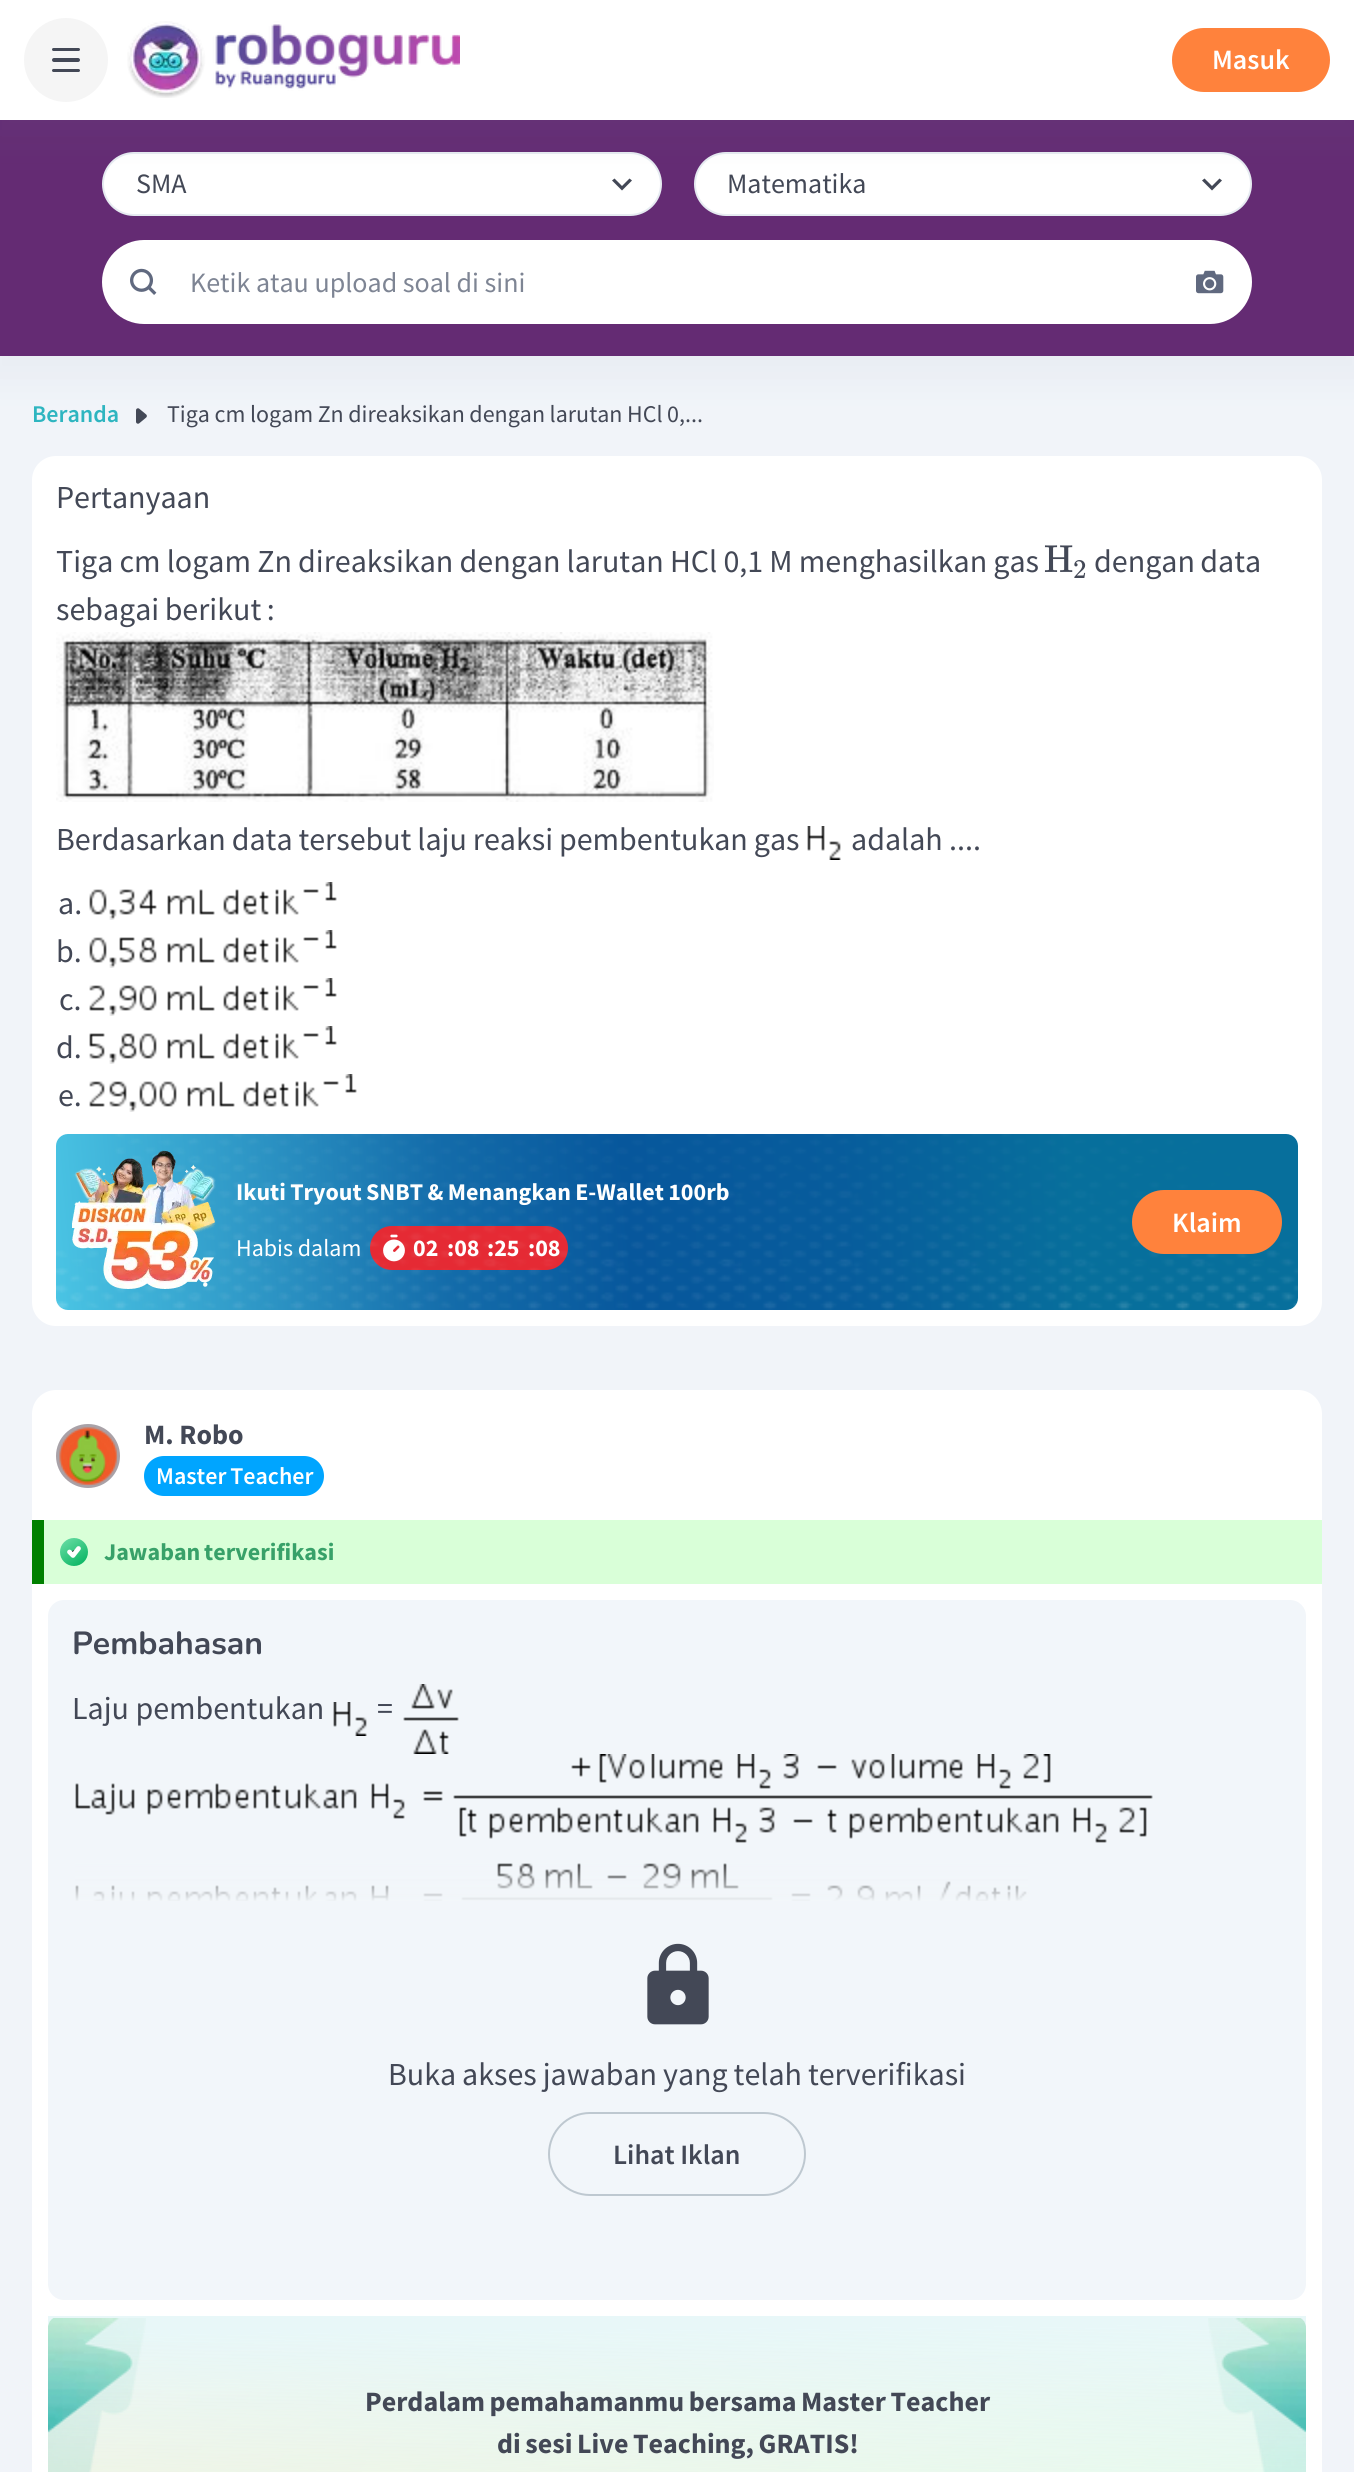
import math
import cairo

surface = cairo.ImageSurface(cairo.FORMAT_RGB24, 1354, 2472)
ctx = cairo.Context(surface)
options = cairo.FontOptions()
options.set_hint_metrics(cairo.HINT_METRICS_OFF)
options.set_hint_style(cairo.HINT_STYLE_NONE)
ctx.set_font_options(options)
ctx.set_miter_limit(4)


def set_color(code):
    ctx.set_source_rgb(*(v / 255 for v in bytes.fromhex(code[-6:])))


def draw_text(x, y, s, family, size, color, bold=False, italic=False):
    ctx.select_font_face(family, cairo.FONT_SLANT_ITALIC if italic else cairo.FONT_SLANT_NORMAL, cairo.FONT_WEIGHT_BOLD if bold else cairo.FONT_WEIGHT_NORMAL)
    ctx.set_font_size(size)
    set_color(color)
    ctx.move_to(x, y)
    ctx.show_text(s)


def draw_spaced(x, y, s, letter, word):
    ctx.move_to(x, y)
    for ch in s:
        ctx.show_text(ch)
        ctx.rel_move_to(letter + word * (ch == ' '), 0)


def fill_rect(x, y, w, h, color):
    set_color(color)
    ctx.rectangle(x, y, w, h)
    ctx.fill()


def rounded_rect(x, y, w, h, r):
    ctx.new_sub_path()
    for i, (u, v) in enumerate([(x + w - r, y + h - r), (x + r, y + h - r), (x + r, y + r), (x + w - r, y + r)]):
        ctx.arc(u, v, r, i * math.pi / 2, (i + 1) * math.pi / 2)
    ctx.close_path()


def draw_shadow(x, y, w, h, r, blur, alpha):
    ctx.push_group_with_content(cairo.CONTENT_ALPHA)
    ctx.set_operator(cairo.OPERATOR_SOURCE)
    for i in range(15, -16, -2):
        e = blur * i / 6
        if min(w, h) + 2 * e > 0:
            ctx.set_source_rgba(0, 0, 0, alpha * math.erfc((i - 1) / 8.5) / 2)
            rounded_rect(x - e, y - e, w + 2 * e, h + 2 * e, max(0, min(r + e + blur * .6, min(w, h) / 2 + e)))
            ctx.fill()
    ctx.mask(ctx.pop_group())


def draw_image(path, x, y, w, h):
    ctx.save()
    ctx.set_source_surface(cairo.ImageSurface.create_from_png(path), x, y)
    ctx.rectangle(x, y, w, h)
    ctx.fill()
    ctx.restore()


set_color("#f1f4f9")
ctx.paint()
draw_image("assets/img4.png", 136, 408, 11, 16)
set_color("#7182a4")
draw_shadow(-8, 124, 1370, 252, 0, 20, 0.08)
fill_rect(0, 120, 1354, 236, "#642b73")
set_color("#ffffff")
rounded_rect(103, 153, 558, 62, 31)
ctx.fill_preserve()
set_color("#e6ebf1")
ctx.stroke()
set_color("#434856")
ctx.new_path()
ctx.move_to(629.5, 178.5)
ctx.line_to(622, 186)
ctx.line_to(614.5, 178.5)
ctx.line_to(612, 180.5)
ctx.line_to(622, 190.5)
ctx.line_to(632, 180.5)
ctx.close_path()
ctx.fill()
set_color("#ffffff")
rounded_rect(695, 153, 556, 62, 31)
ctx.fill_preserve()
set_color("#e6ebf1")
ctx.stroke()
set_color("#434856")
ctx.new_path()
ctx.move_to(1219.5, 178.5)
ctx.line_to(1212, 186)
ctx.line_to(1204.5, 178.5)
ctx.line_to(1202, 180.5)
ctx.line_to(1212, 190.5)
ctx.line_to(1222, 180.5)
ctx.close_path()
ctx.fill()
set_color("#7182a4")
draw_shadow(-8, 4, 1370, 136, 0, 20, 0.08)
fill_rect(0, 0, 1354, 120, "#ffffff")
set_color("#f5f5f5")
ctx.arc(66, 60, 42, 0, 2 * math.pi)
ctx.fill()
set_color("#434856")
rounded_rect(52, 48, 28, 3, 1.5)
ctx.fill()
rounded_rect(52, 58, 28, 4, 2)
ctx.fill()
rounded_rect(52, 69, 28, 3, 1.5)
ctx.fill()
draw_image("assets/img1.png", 127, 21, 333, 77)
set_color("#ff823c")
rounded_rect(1172, 28, 158, 64, 32)
ctx.fill()
draw_text(1212, 69, "Masuk", "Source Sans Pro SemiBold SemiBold", 28, "#ffffff")
draw_text(136, 193, "SMA", "Source Sans Pro", 28, "#434856")
draw_text(727, 193, "Matematika", "Source Sans Pro", 28, "#434856")
set_color("#ffffff")
rounded_rect(102, 240, 1150, 84, 42)
ctx.fill()
draw_image("assets/img2.png", 130, 268, 27, 27)
draw_text(190, 292, "Ketik atau upload soal di sini", "Source Sans Pro", 28, "#7e8594")
draw_image("assets/img3.png", 1196, 270, 28, 24)
draw_text(32, 422, "Beranda", "Source Sans Pro SemiBold SemiBold", 24, "#2eb5c0")
ctx.select_font_face("Source Sans Pro")
set_color("#434856")
draw_spaced(167, 422, "Tiga cm logam Zn direaksikan dengan larutan HCl 0,...", 0, -0.25)
set_color("#ffffff")
rounded_rect(32, 456, 1290, 870, 24)
ctx.fill()
draw_text(56, 508, "Pertanyaan", "Source Sans Pro", 32, "#434856")
draw_spaced(56, 572, "Tiga cm logam Zn direaksikan dengan larutan HCl 0,1 M menghasilkan gas", 0, -0.25)
draw_text(1044, 572, "H", "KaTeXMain", 39, "#434856")
draw_text(1073, 578, "2", "KaTeXMain", 27, "#434856")
ctx.select_font_face("Source Sans Pro")
ctx.set_font_size(32)
draw_spaced(1094, 572, "dengan data", 0, -1)
draw_spaced(56, 620, "sebagai berikut :", 0, -1)
draw_image("assets/img5.png", 56, 632, 658, 170)
draw_spaced(56, 850, "Berdasarkan data tersebut laju reaksi pembentukan gas", 0, -0.5)
draw_image("assets/img6.png", 807, 826, 34, 34)
draw_text(851, 850, "adalah ....", "Source Sans Pro", 32, "#434856")
draw_text(58, 914, "a.", "Source Sans Pro", 32, "#434856")
draw_image("assets/img7.png", 89, 882, 248, 38)
draw_text(56, 962, "b.", "Source Sans Pro", 32, "#434856")
draw_image("assets/img8.png", 89, 930, 248, 38)
draw_text(59, 1010, "c.", "Source Sans Pro", 32, "#434856")
draw_image("assets/img9.png", 89, 978, 248, 38)
draw_text(56, 1058, "d.", "Source Sans Pro", 32, "#434856")
draw_image("assets/img10.png", 89, 1026, 248, 38)
draw_text(58, 1106, "e.", "Source Sans Pro", 32, "#434856")
draw_image("assets/img11.png", 89, 1074, 268, 38)
gradient = cairo.LinearGradient(1301, 1167, -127, 1292)
gradient.add_color_stop_rgba(0.16, 0.027, 0.435, 0.612, 1)
gradient.add_color_stop_rgba(0.32, 0.027, 0.361, 0.612, 1)
gradient.add_color_stop_rgba(0.47, 0.027, 0.341, 0.612, 1)
gradient.add_color_stop_rgba(0.6, 0.078, 0.424, 0.667, 1)
gradient.add_color_stop_rgba(1, 0.388, 0.929, 1, 1)
ctx.set_source(gradient)
rounded_rect(56, 1134, 1242, 176, 12)
ctx.fill()
draw_image("assets/img13.png", 72, 1150, 144, 139)
ctx.select_font_face("Source Sans Pro", cairo.FONT_SLANT_NORMAL, cairo.FONT_WEIGHT_BOLD)
ctx.set_font_size(24)
set_color("#ffffff")
draw_spaced(236, 1200, "Ikuti Tryout SNBT & Menangkan E-Wallet 100rb", 0, -0.5)
draw_text(236, 1256, "Habis dalam", "Source Sans Pro", 24, "#ffffff")
set_color("#e52a34")
rounded_rect(370, 1226, 198, 44, 22)
ctx.fill()
draw_image("assets/img14.png", 383, 1234, 22, 28)
draw_text(413, 1256, "02", "Source Sans Pro", 24, "#ffffff", bold=True)
draw_text(447, 1256, ":08", "Source Sans Pro", 24, "#ffffff", bold=True)
draw_text(487, 1256, ":25", "Source Sans Pro", 24, "#ffffff", bold=True)
draw_text(528, 1256, ":08", "Source Sans Pro", 24, "#ffffff", bold=True)
draw_image("assets/img12.png", 56, 1134, 1242, 176)
set_color("#ff823c")
rounded_rect(1132, 1190, 150, 64, 32)
ctx.fill()
draw_text(1172, 1232, "Klaim", "Source Sans Pro SemiBold SemiBold", 28, "#ffffff")
rounded_rect(32, 1390, 1290, 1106, 24)
ctx.fill()
set_color("#a9a2a8")
ctx.arc(88, 1456, 32, 0, 2 * math.pi)
ctx.fill()
draw_image("assets/img15.png", 59, 1427, 59, 59)
draw_text(144, 1444, "M. Robo", "Source Sans Pro", 28, "#434856", bold=True)
set_color("#00a5ff")
rounded_rect(144, 1456, 180, 40, 20)
ctx.fill()
ctx.select_font_face("Source Sans Pro SemiBold SemiBold")
ctx.set_font_size(24)
set_color("#ffffff")
draw_spaced(156, 1484, "Master Teacher", 0, -1)
fill_rect(32, 1520, 12, 64, "#008000")
fill_rect(44, 1520, 1278, 64, "#d9ffd8")
gradient = cairo.LinearGradient(85, 1568, 63, 1536)
gradient.add_color_stop_rgba(0.13, 0.055, 0.718, 0.4, 1)
gradient.add_color_stop_rgba(1, 0.435, 0.875, 0.663, 1)
ctx.set_source(gradient)
ctx.new_path()
ctx.arc(74, 1552, 14, 0, 2 * math.pi)
ctx.fill()
set_color("#000000")
ctx.new_path()
ctx.move_to(69.5, 1552)
ctx.line_to(73, 1555.5)
ctx.line_to(78.5, 1548.5)
ctx.fill_preserve()
set_color("#ffffff")
ctx.set_line_width(4.7)
ctx.set_line_cap(cairo.LINE_CAP_ROUND)
ctx.set_line_join(cairo.LINE_JOIN_ROUND)
ctx.stroke()
ctx.select_font_face("Source Sans Pro", cairo.FONT_SLANT_NORMAL, cairo.FONT_WEIGHT_BOLD)
set_color("#38a169")
draw_spaced(104, 1560, "Jawaban terverifikasi", 0, -1)
set_color("#f2f6fa")
rounded_rect(48, 1600, 1258, 700, 16)
ctx.fill()
draw_text(72, 1654, "Pembahasan", "Nunito", 32, "#434856", bold=True)
draw_text(72, 1719, "Laju pembentukan", "Source Sans Pro", 32, "#434856")
draw_image("assets/img16.png", 333, 1702, 34, 34)
draw_text(377, 1719, "=", "Source Sans Pro", 32, "#434856")
draw_image("assets/img17.png", 403, 1684, 56, 70)
draw_image("assets/img18.png", 75, 1754, 1078, 147)
gradient = cairo.LinearGradient(677, 2276, 677, 1860)
gradient.add_color_stop_rgba(0.9, 0.949, 0.965, 0.98, 1)
gradient.add_color_stop_rgba(1, 0.949, 0.965, 0.98, 0)
ctx.set_source(gradient)
ctx.rectangle(75, 1863, 953, 38)
ctx.fill()
draw_image("assets/img19.png", 647, 1943, 62, 82)
set_color("#434856")
draw_spaced(388, 2085, "Buka akses jawaban yang telah terverifikasi", 0, -0.5)
rounded_rect(549, 2113, 256, 82, 41)
set_color("#bec8d0")
ctx.set_line_width(2)
ctx.set_line_cap(cairo.LINE_CAP_BUTT)
ctx.set_line_join(cairo.LINE_JOIN_MITER)
ctx.stroke()
draw_text(613, 2164, "Lihat Iklan", "Source Sans Pro SemiBold SemiBold", 28, "#434856")
gradient = cairo.LinearGradient(272, 2073, 1082, 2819)
gradient.add_color_stop_rgba(0.03, 0.98, 0.937, 0.796, 1)
gradient.add_color_stop_rgba(0.99, 0.902, 1, 0.902, 1)
ctx.set_source(gradient)
ctx.rectangle(48, 2325, 1258, 147)
ctx.fill()
gradient = cairo.LinearGradient(676, 2310, 679, 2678)
gradient.add_color_stop_rgba(0.05, 0.91, 0.969, 0.973, 1)
gradient.add_color_stop_rgba(1, 0.91, 0.969, 0.973, 0)
ctx.set_source(gradient)
ctx.rectangle(48, 2316, 1258, 156)
ctx.fill()
draw_image("assets/img20.png", 48, 2318, 98, 154)
ctx.select_font_face("Source Sans Pro", cairo.FONT_SLANT_NORMAL, cairo.FONT_WEIGHT_BOLD)
set_color("#434856")
draw_spaced(365, 2411, "Perdalam pemahamanmu bersama Master Teacher", 0, -1)
draw_spaced(497, 2453, "di sesi Live Teaching, GRATIS!", 0, -1)
draw_image("assets/img21.png", 1208, 2318, 98, 154)
surface.write_to_png("output.png")
